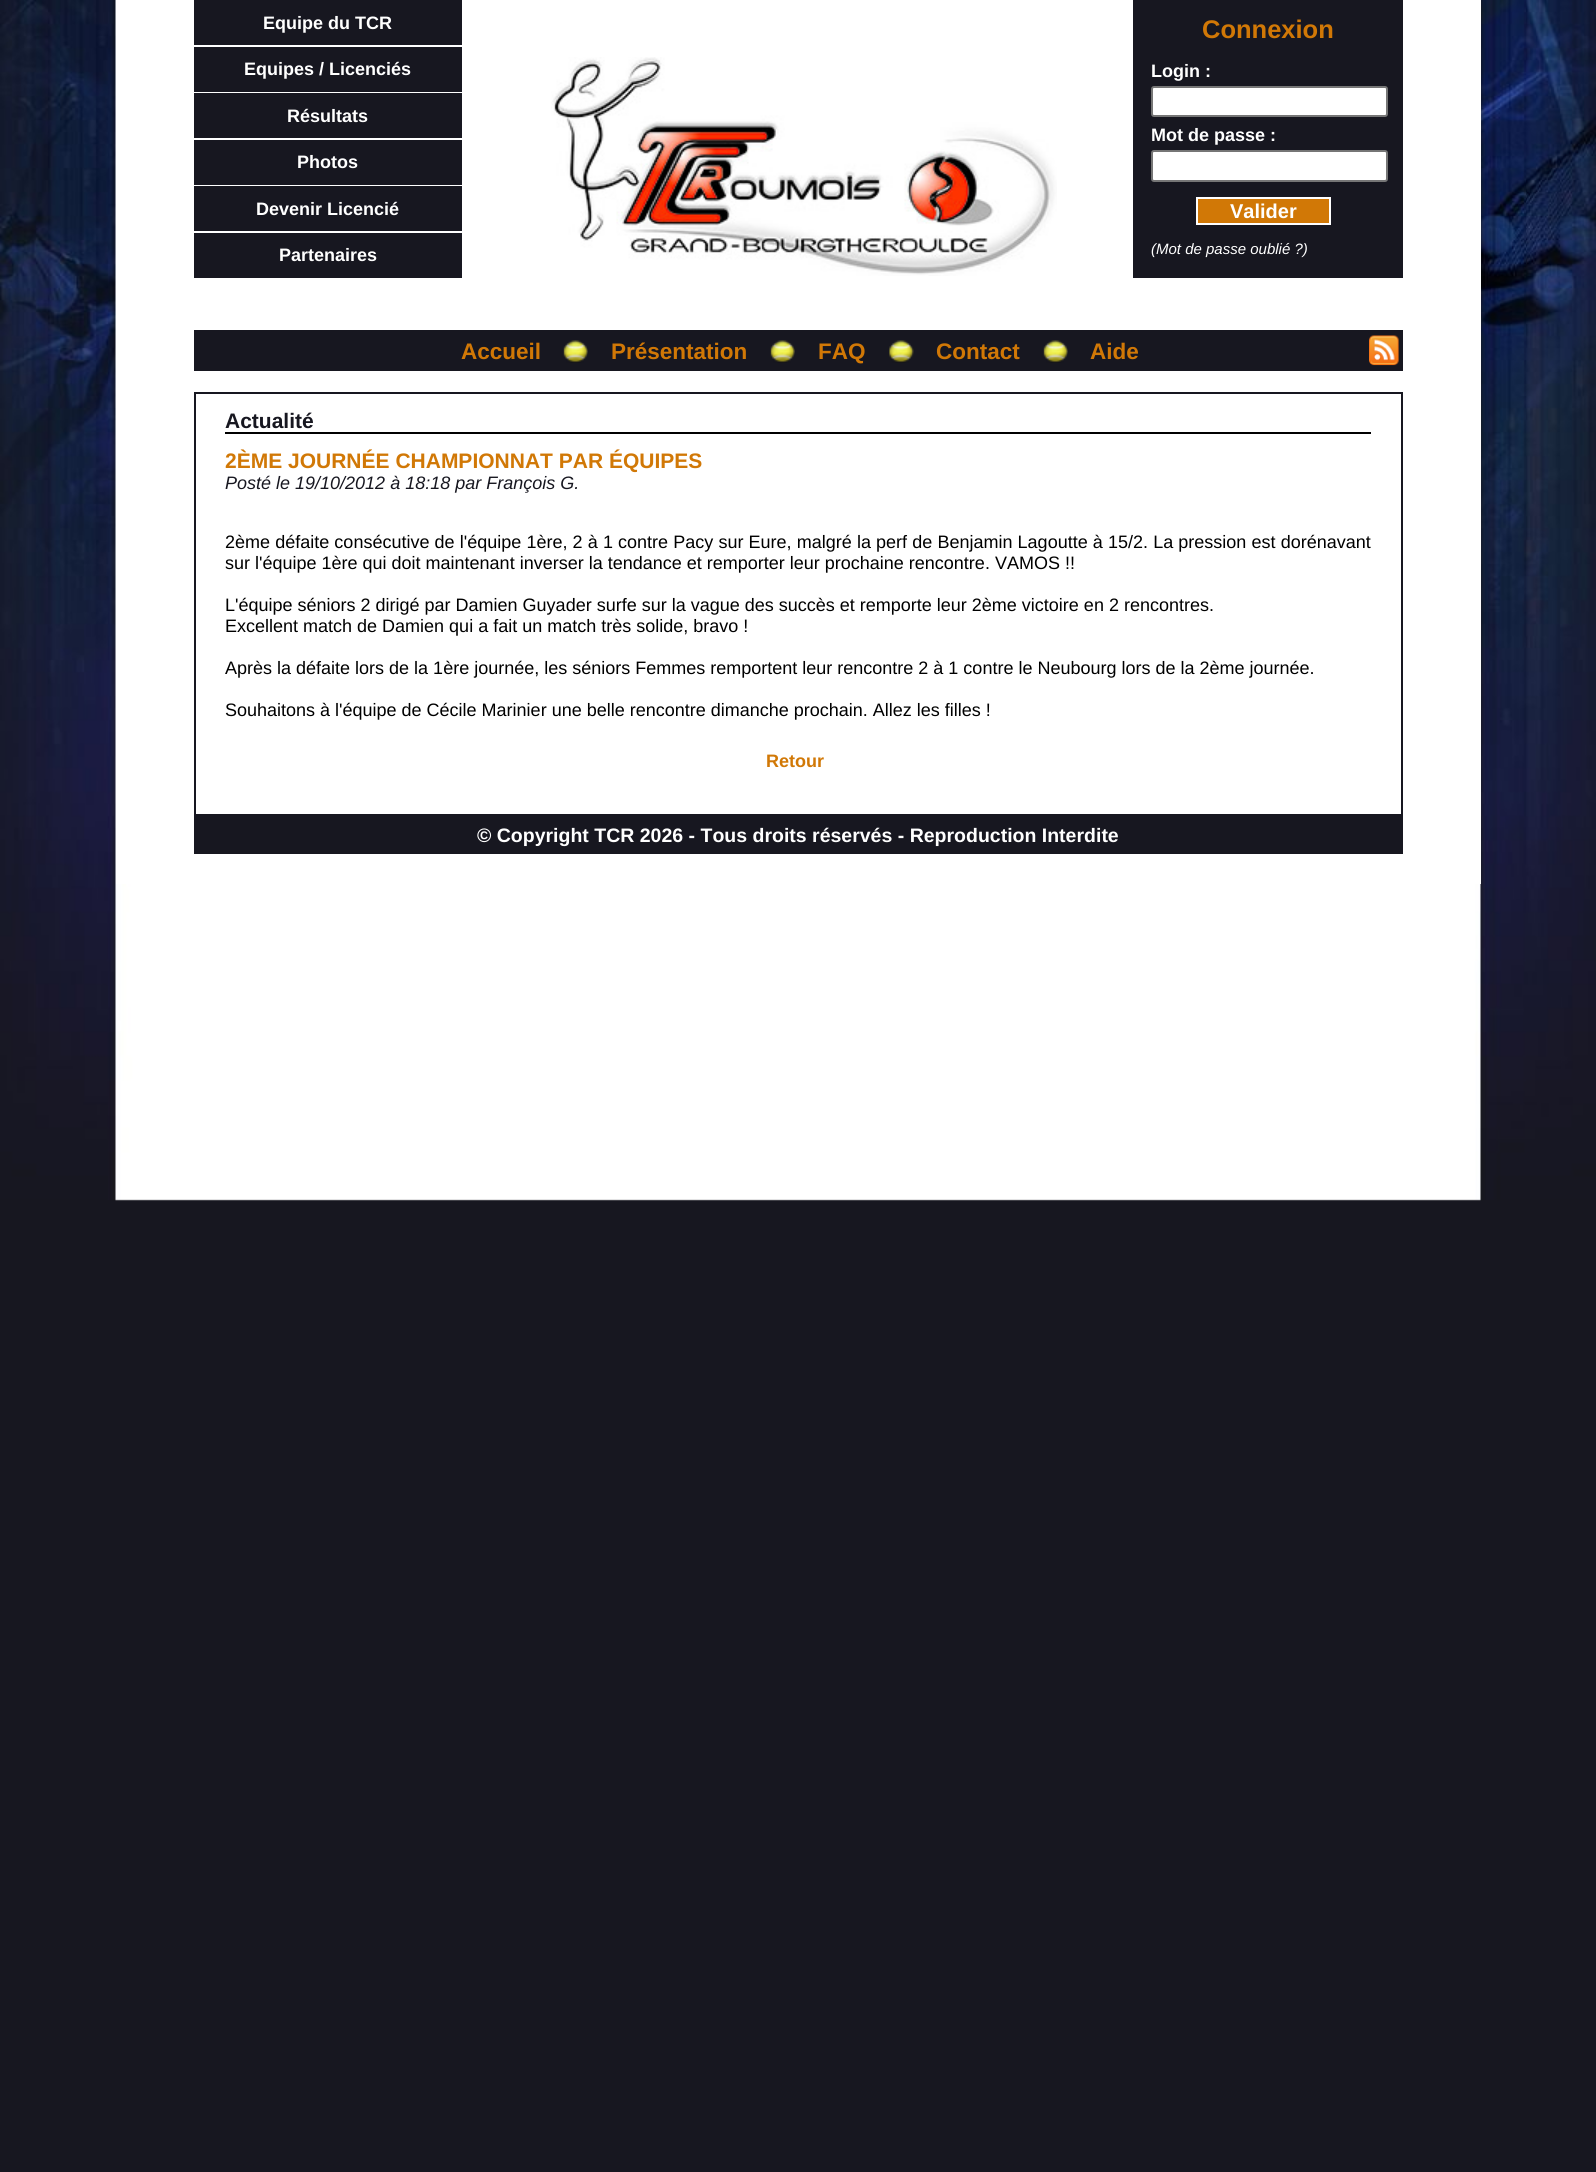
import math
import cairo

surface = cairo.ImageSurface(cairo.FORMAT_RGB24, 1596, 2172)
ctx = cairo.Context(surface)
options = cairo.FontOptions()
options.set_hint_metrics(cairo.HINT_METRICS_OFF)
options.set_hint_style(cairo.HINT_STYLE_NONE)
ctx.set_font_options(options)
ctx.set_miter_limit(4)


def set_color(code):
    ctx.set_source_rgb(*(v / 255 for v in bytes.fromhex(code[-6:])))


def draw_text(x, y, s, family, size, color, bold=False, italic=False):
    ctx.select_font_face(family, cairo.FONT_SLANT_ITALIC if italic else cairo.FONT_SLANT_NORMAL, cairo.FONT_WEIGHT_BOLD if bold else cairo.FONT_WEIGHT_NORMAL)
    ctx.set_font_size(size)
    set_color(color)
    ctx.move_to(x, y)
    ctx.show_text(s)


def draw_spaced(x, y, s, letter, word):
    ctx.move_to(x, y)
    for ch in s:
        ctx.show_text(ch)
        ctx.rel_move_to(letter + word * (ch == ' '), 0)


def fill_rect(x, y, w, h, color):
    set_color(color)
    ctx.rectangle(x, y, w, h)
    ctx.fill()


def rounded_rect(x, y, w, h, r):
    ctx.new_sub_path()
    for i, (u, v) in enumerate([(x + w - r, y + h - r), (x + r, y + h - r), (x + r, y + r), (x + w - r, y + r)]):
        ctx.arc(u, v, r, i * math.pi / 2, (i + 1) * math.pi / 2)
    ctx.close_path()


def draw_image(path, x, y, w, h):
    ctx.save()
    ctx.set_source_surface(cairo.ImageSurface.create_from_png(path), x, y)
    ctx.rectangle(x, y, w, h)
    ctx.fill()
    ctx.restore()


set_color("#171720")
ctx.paint()
draw_image("assets/img1.png", 0, 0, 1596, 1201)
fill_rect(116, 0, 1365, 884, "#ffffff")
draw_image("assets/img2.png", 551, 57, 506, 219)
fill_rect(194, 0, 268, 45, "#171720")
draw_text(263, 29, "Equipe du TCR", "Liberation Sans", 18, "#ffffff", bold=True)
fill_rect(194, 47, 268, 45, "#171720")
draw_text(244, 75, "Equipes / Licenciés", "Liberation Sans", 18, "#ffffff", bold=True)
fill_rect(194, 93, 268, 45, "#171720")
draw_text(287, 122, "Résultats", "Liberation Sans", 18, "#ffffff", bold=True)
fill_rect(194, 140, 268, 45, "#171720")
draw_text(297, 168, "Photos", "Liberation Sans", 18, "#ffffff", bold=True)
fill_rect(194, 186, 268, 45, "#171720")
draw_text(256, 215, "Devenir Licencié", "Liberation Sans", 18, "#ffffff", bold=True)
fill_rect(194, 233, 268, 45, "#171720")
draw_text(279, 261, "Partenaires", "Liberation Sans", 18, "#ffffff", bold=True)
fill_rect(1133, 0, 270, 278, "#171720")
draw_text(1202, 38, "Connexion", "Liberation Sans", 25.5, "#d17806", bold=True)
draw_text(1151, 77, "Login :", "Liberation Sans", 18, "#ffffff", bold=True)
rounded_rect(1152, 87, 235, 29, 2)
ctx.fill_preserve()
set_color("#767676")
ctx.stroke()
draw_text(1151, 141, "Mot de passe :", "Liberation Sans", 18, "#ffffff", bold=True)
rounded_rect(1152, 151, 235, 30, 2)
ctx.fill_preserve()
set_color("#767676")
ctx.stroke()
set_color("#d17806")
ctx.rectangle(1197, 198, 133, 26)
ctx.fill_preserve()
set_color("#ffffff")
ctx.stroke()
draw_text(1230, 218, "Valider", "Liberation Sans", 20, "#ffffff", bold=True)
draw_text(1151, 254, "(Mot de passe oublié ?)", "Liberation Sans", 15, "#ffffff", italic=True)
fill_rect(194, 330, 1209, 41, "#171720")
draw_text(461, 359, "Accueil", "Liberation Sans", 22.5, "#d17806", bold=True)
draw_image("assets/img3.png", 563, 340, 25, 23)
draw_text(611, 359, "Présentation", "Liberation Sans", 22.5, "#d17806", bold=True)
draw_image("assets/img4.png", 770, 340, 25, 23)
draw_text(818, 359, "FAQ", "Liberation Sans", 22.5, "#d17806", bold=True)
draw_image("assets/img5.png", 889, 340, 25, 23)
draw_text(936, 359, "Contact", "Liberation Sans", 22.5, "#d17806", bold=True)
draw_image("assets/img3.png", 1043, 340, 25, 23)
draw_text(1090, 359, "Aide", "Liberation Sans", 22.5, "#d17806", bold=True)
draw_image("assets/img6.png", 1369, 335, 30, 31)
ctx.rectangle(195, 393, 1207, 422)
set_color("#171720")
ctx.stroke()
fill_rect(225, 432, 1146, 2, "#000000")
draw_text(225, 428, "Actualité", "Liberation Sans", 21, "#171720", bold=True)
draw_text(225, 468, "2ÈME JOURNÉE CHAMPIONNAT PAR ÉQUIPES", "Liberation Sans", 21, "#d17806", bold=True)
draw_text(225, 489, "Posté le 19/10/2012 à 18:18 par François G.", "Liberation Sans", 18, "#171720", italic=True)
ctx.select_font_face("Liberation Sans")
set_color("#000000")
draw_spaced(225, 548, "2ème défaite consécutive de l'équipe 1ère, 2 à 1 contre Pacy sur Eure, malgré la perf de Benjamin Lagoutte à 15/2. La pression est dorénavant", 0, 0.15)
draw_text(225, 569, "sur l'équipe 1ère qui doit maintenant inverser la tendance et remporter leur prochaine rencontre. VAMOS !!", "Liberation Sans", 18, "#000000")
draw_text(225, 611, "L'équipe séniors 2 dirigé par Damien Guyader surfe sur la vague des succès et remporte leur 2ème victoire en 2 rencontres.", "Liberation Sans", 18, "#000000")
draw_text(225, 632, "Excellent match de Damien qui a fait un match très solide, bravo !", "Liberation Sans", 18, "#000000")
draw_text(225, 674, "Après la défaite lors de la 1ère journée, les séniors Femmes remportent leur rencontre 2 à 1 contre le Neubourg lors de la 2ème journée.", "Liberation Sans", 18, "#000000")
draw_text(225, 716, "Souhaitons à l'équipe de Cécile Marinier une belle rencontre dimanche prochain. Allez les filles !", "Liberation Sans", 18, "#000000")
draw_text(766, 767, "Retour", "Liberation Sans", 18, "#d17806", bold=True)
fill_rect(194, 816, 1209, 38, "#171720")
draw_text(477, 842, "© Copyright TCR 2026 - Tous droits réservés - Reproduction Interdite", "Liberation Sans", 19.5, "#ffffff", bold=True)
surface.write_to_png("output.png")
